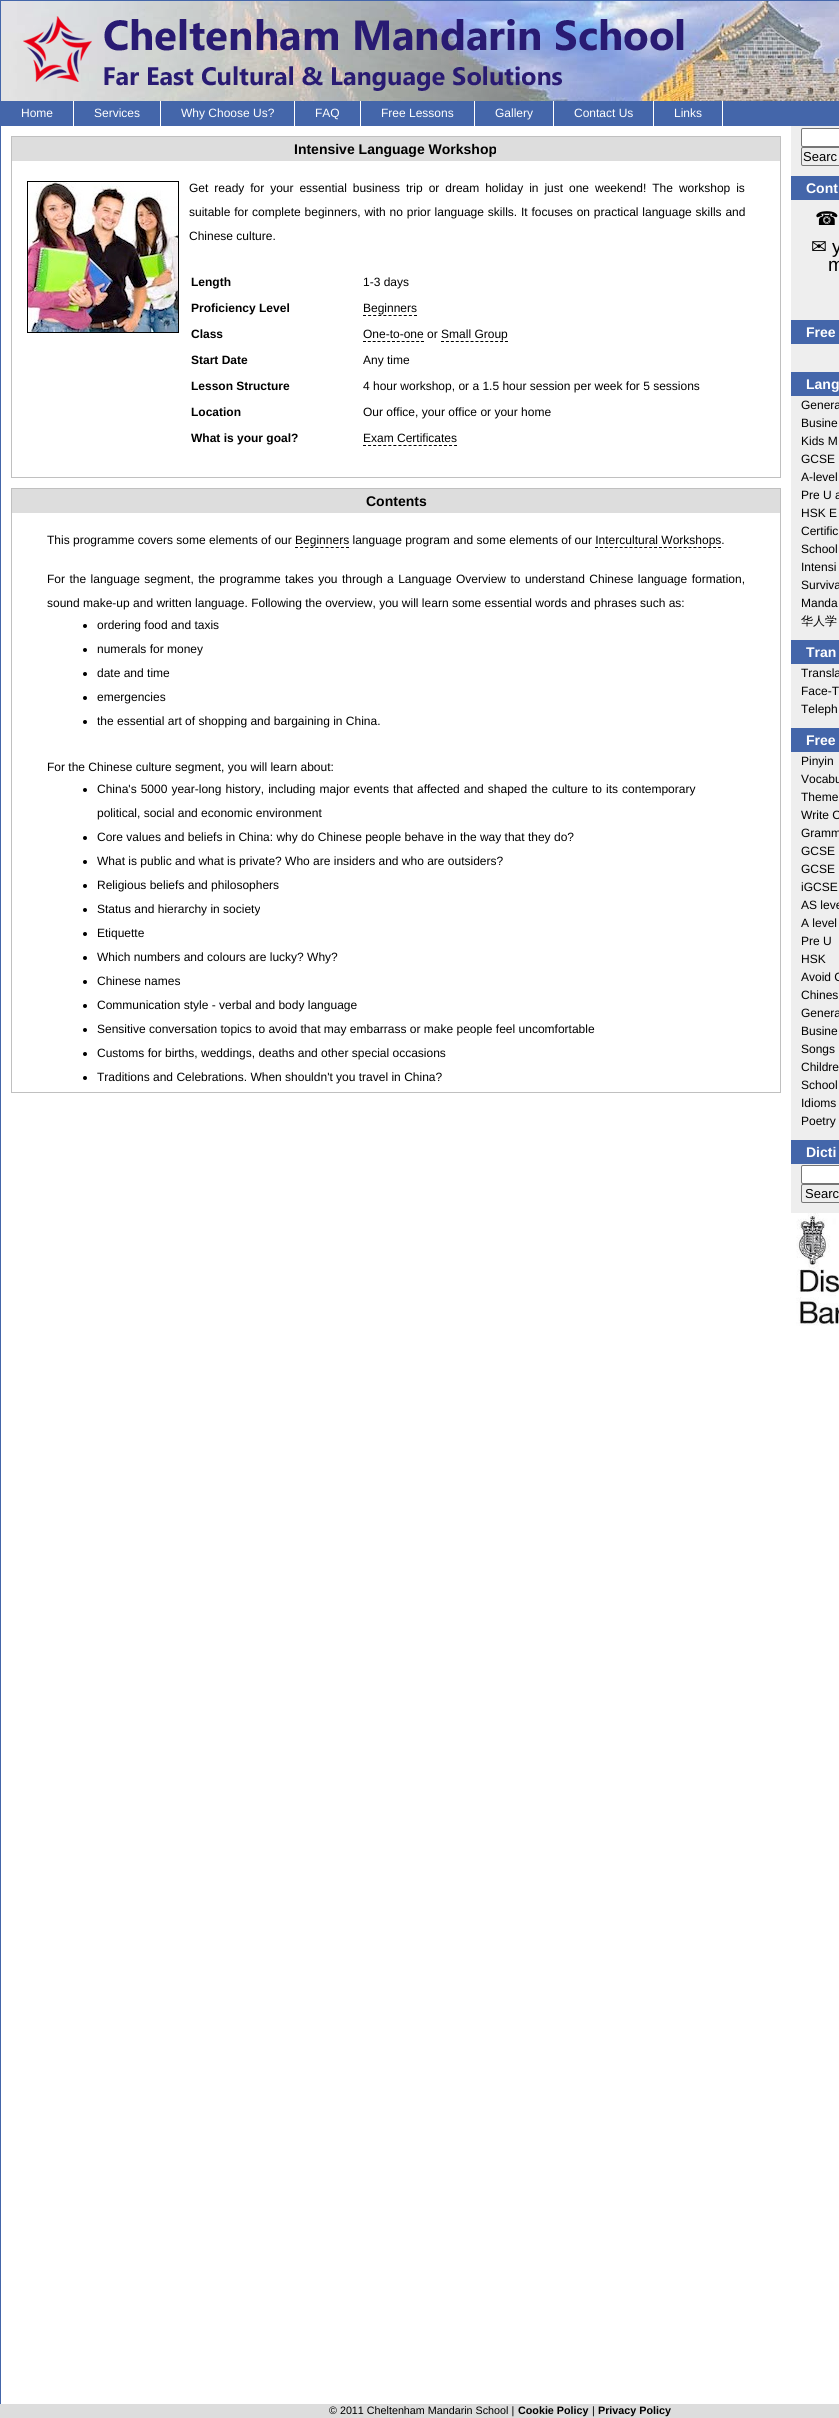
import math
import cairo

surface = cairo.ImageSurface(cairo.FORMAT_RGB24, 839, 2418)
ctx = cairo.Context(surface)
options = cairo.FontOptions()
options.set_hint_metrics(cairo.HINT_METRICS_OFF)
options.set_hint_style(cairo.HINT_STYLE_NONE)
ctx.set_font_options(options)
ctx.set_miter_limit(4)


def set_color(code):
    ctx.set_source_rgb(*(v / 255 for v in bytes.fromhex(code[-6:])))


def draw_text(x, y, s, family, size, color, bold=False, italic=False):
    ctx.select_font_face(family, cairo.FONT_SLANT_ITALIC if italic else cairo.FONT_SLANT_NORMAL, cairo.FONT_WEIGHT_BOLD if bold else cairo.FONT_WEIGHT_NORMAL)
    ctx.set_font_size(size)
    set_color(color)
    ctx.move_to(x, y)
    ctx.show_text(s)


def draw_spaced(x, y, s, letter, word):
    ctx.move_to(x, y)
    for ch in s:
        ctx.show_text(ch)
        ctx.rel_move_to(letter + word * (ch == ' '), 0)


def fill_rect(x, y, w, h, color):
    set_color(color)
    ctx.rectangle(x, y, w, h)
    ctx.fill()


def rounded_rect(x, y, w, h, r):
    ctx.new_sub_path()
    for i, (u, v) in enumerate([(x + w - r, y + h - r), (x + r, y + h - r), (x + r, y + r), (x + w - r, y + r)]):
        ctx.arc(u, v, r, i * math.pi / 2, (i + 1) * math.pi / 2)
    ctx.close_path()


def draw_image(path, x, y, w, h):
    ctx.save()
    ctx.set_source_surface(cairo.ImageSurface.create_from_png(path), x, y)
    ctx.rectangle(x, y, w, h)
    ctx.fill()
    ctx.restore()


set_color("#ffffff")
ctx.paint()
ctx.rectangle(0.5, 0.5, 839, 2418)
set_color("#4466aa")
ctx.set_line_width(1)
ctx.stroke()
draw_image("assets/img1.png", 1, 1, 838, 100)
draw_image("assets/img2.png", 23, 16, 661, 75)
fill_rect(1, 101, 838, 25, "#4466aa")
fill_rect(73, 101, 1, 25, "#ffffff")
draw_text(21, 117, "Home", "Liberation Sans", 12, "#ffffff")
fill_rect(160, 101, 1, 25, "#ffffff")
draw_text(94, 117, "Services", "Liberation Sans", 12, "#ffffff")
fill_rect(294, 101, 1, 25, "#ffffff")
draw_text(181, 117, "Why Choose Us?", "Liberation Sans", 12, "#ffffff")
fill_rect(360, 101, 1, 25, "#ffffff")
draw_text(315, 117, "FAQ", "Liberation Sans", 12, "#ffffff")
fill_rect(474, 101, 1, 25, "#ffffff")
draw_text(381, 117, "Free Lessons", "Liberation Sans", 12, "#ffffff")
fill_rect(553, 101, 1, 25, "#ffffff")
draw_text(495, 117, "Gallery", "Liberation Sans", 12, "#ffffff")
fill_rect(653, 101, 1, 25, "#ffffff")
draw_text(574, 117, "Contact Us", "Liberation Sans", 12, "#ffffff")
fill_rect(722, 101, 1, 25, "#ffffff")
draw_text(674, 117, "Links", "Liberation Sans", 12, "#ffffff")
ctx.rectangle(11.5, 136.5, 769, 341)
set_color("#c0c0c0")
ctx.stroke()
fill_rect(12, 137, 768, 24, "#dddddd")
draw_text(294, 154, "Intensive Language Workshop", "Liberation Sans", 14, "#000000", bold=True)
ctx.rectangle(27.5, 181.5, 151, 151)
ctx.stroke()
draw_image("assets/img3.png", 28, 182, 150, 150)
ctx.select_font_face("Liberation Sans")
ctx.set_font_size(12)
draw_spaced(189, 192, "Get ready for your essential business trip or dream holiday in just one weekend! The workshop is", 0, 2.6)
draw_spaced(189, 216, "suitable for complete beginners, with no prior language skills. It focuses on practical language skills and", 0, 0.5)
draw_text(189, 240, "Chinese culture.", "Liberation Sans", 12, "#000000")
draw_text(191, 286, "Length", "Liberation Sans", 12, "#000000", bold=True)
draw_text(363, 286, "1-3 days", "Liberation Sans", 12, "#000000")
draw_text(191, 312, "Proficiency Level", "Liberation Sans", 12, "#000000", bold=True)
draw_text(363, 312, "Beginners", "Liberation Sans", 12, "#000000")
ctx.new_path()
ctx.move_to(363, 315.5)
ctx.line_to(417, 315.5)
ctx.set_dash([3, 2.1])
ctx.stroke()
draw_text(191, 338, "Class", "Liberation Sans", 12, "#000000", bold=True)
draw_text(363, 338, "One-to-one or Small Group", "Liberation Sans", 12, "#000000")
ctx.new_path()
ctx.move_to(363, 341.5)
ctx.line_to(424, 341.5)
ctx.set_dash([3, 1.83])
ctx.stroke()
ctx.new_path()
ctx.move_to(441, 341.5)
ctx.line_to(508, 341.5)
ctx.set_dash([3, 1.92])
ctx.stroke()
draw_text(191, 364, "Start Date", "Liberation Sans", 12, "#000000", bold=True)
draw_text(363, 364, "Any time", "Liberation Sans", 12, "#000000")
draw_text(191, 390, "Lesson Structure", "Liberation Sans", 12, "#000000", bold=True)
draw_text(363, 390, "4 hour workshop, or a 1.5 hour session per week for 5 sessions", "Liberation Sans", 12, "#000000")
draw_text(191, 416, "Location", "Liberation Sans", 12, "#000000", bold=True)
draw_text(363, 416, "Our office, your office or your home", "Liberation Sans", 12, "#000000")
draw_text(191, 442, "What is your goal?", "Liberation Sans", 12, "#000000", bold=True)
draw_text(363, 442, "Exam Certificates", "Liberation Sans", 12, "#000000")
ctx.new_path()
ctx.move_to(363, 445.5)
ctx.line_to(457, 445.5)
ctx.set_dash([3, 2.06])
ctx.stroke()
ctx.rectangle(11.5, 488.5, 769, 604)
set_color("#c0c0c0")
ctx.set_dash([])
ctx.stroke()
fill_rect(12, 489, 768, 24, "#dddddd")
draw_text(366, 506, "Contents", "Liberation Sans", 14, "#000000", bold=True)
draw_text(47, 544, "This programme covers some elements of our Beginners language program and some elements of our Intercultural Workshops.", "Liberation Sans", 12, "#000000")
ctx.new_path()
ctx.move_to(295, 547.5)
ctx.line_to(349, 547.5)
ctx.set_dash([3, 2.1])
ctx.stroke()
ctx.new_path()
ctx.move_to(595, 547.5)
ctx.line_to(721, 547.5)
ctx.set_dash([3, 1.92])
ctx.stroke()
draw_spaced(47, 583, "For the language segment, the programme takes you through a Language Overview to understand Chinese language formation,", 0, 1.1)
draw_text(47, 607, "sound make-up and written language. Following the overview, you will learn some essential words and phrases such as:", "Liberation Sans", 12, "#000000")
ctx.new_path()
ctx.arc(85, 626, 2, 0, 2 * math.pi)
ctx.fill()
draw_text(97, 629, "ordering food and taxis", "Liberation Sans", 12, "#000000")
ctx.new_path()
ctx.arc(85, 650, 2, 0, 2 * math.pi)
ctx.fill()
draw_text(97, 653, "numerals for money", "Liberation Sans", 12, "#000000")
ctx.new_path()
ctx.arc(85, 674, 2, 0, 2 * math.pi)
ctx.fill()
draw_text(97, 677, "date and time", "Liberation Sans", 12, "#000000")
ctx.new_path()
ctx.arc(85, 698, 2, 0, 2 * math.pi)
ctx.fill()
draw_text(97, 701, "emergencies", "Liberation Sans", 12, "#000000")
ctx.new_path()
ctx.arc(85, 722, 2, 0, 2 * math.pi)
ctx.fill()
draw_text(97, 725, "the essential art of shopping and bargaining in China.", "Liberation Sans", 12, "#000000")
draw_text(47, 771, "For the Chinese culture segment, you will learn about:", "Liberation Sans", 12, "#000000")
ctx.new_path()
ctx.arc(85, 790, 2, 0, 2 * math.pi)
ctx.fill()
draw_spaced(97, 793, "China's 5000 year-long history, including major events that affected and shaped the culture to its contemporary", 0, 0.7)
draw_text(97, 817, "political, social and economic environment", "Liberation Sans", 12, "#000000")
ctx.new_path()
ctx.arc(85, 838, 2, 0, 2 * math.pi)
ctx.fill()
draw_text(97, 841, "Core values and beliefs in China: why do Chinese people behave in the way that they do?", "Liberation Sans", 12, "#000000")
ctx.new_path()
ctx.arc(85, 862, 2, 0, 2 * math.pi)
ctx.fill()
draw_text(97, 865, "What is public and what is private? Who are insiders and who are outsiders?", "Liberation Sans", 12, "#000000")
ctx.new_path()
ctx.arc(85, 886, 2, 0, 2 * math.pi)
ctx.fill()
draw_text(97, 889, "Religious beliefs and philosophers", "Liberation Sans", 12, "#000000")
ctx.new_path()
ctx.arc(85, 910, 2, 0, 2 * math.pi)
ctx.fill()
draw_text(97, 913, "Status and hierarchy in society", "Liberation Sans", 12, "#000000")
ctx.new_path()
ctx.arc(85, 934, 2, 0, 2 * math.pi)
ctx.fill()
draw_text(97, 937, "Etiquette", "Liberation Sans", 12, "#000000")
ctx.new_path()
ctx.arc(85, 958, 2, 0, 2 * math.pi)
ctx.fill()
draw_text(97, 961, "Which numbers and colours are lucky? Why?", "Liberation Sans", 12, "#000000")
ctx.new_path()
ctx.arc(85, 982, 2, 0, 2 * math.pi)
ctx.fill()
draw_text(97, 985, "Chinese names", "Liberation Sans", 12, "#000000")
ctx.new_path()
ctx.arc(85, 1006, 2, 0, 2 * math.pi)
ctx.fill()
draw_text(97, 1009, "Communication style - verbal and body language", "Liberation Sans", 12, "#000000")
ctx.new_path()
ctx.arc(85, 1030, 2, 0, 2 * math.pi)
ctx.fill()
draw_text(97, 1033, "Sensitive conversation topics to avoid that may embarrass or make people feel uncomfortable", "Liberation Sans", 12, "#000000")
ctx.new_path()
ctx.arc(85, 1054, 2, 0, 2 * math.pi)
ctx.fill()
draw_text(97, 1057, "Customs for births, weddings, deaths and other special occasions", "Liberation Sans", 12, "#000000")
ctx.new_path()
ctx.arc(85, 1078, 2, 0, 2 * math.pi)
ctx.fill()
draw_text(97, 1081, "Traditions and Celebrations. When shouldn't you travel in China?", "Liberation Sans", 12, "#000000")
fill_rect(791, 126, 48, 1087, "#eeeeee")
set_color("#ffffff")
rounded_rect(801.5, 128.5, 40, 18, 1.5)
ctx.fill_preserve()
set_color("#767676")
ctx.set_dash([])
ctx.stroke()
rounded_rect(801.5, 147.5, 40, 18, 1.5)
ctx.stroke()
draw_text(803, 161, "Searc", "Liberation Sans", 13, "#000000")
fill_rect(791, 176, 48, 24, "#4466aa")
draw_text(806, 193, "Cont", "Liberation Sans", 14, "#ffffff", bold=True)
draw_text(815, 225, "☎", "DejaVu Sans", 19, "#000000")
draw_text(811, 253, "✉", "DejaVu Sans", 19, "#000000")
draw_text(832, 253, "y", "Liberation Sans", 19, "#000000")
draw_text(828, 271, "m", "Liberation Sans", 19, "#000000")
fill_rect(791, 320, 48, 24, "#4466aa")
draw_text(806, 337, "Free", "Liberation Sans", 14, "#ffffff", bold=True)
fill_rect(791, 372, 48, 24, "#4466aa")
draw_text(806, 389, "Lang", "Liberation Sans", 14, "#ffffff", bold=True)
draw_text(801, 409, "Genera", "Liberation Sans", 12, "#000000")
draw_text(801, 427, "Busine", "Liberation Sans", 12, "#000000")
draw_text(801, 445, "Kids M", "Liberation Sans", 12, "#000000")
draw_text(801, 463, "GCSE", "Liberation Sans", 12, "#000000")
draw_text(801, 481, "A-level", "Liberation Sans", 12, "#000000")
draw_text(801, 499, "Pre U a", "Liberation Sans", 12, "#000000")
draw_text(801, 517, "HSK E", "Liberation Sans", 12, "#000000")
draw_text(801, 535, "Certific", "Liberation Sans", 12, "#000000")
draw_text(801, 553, "School", "Liberation Sans", 12, "#000000")
draw_text(801, 571, "Intensi", "Liberation Sans", 12, "#000000")
draw_text(801, 589, "Surviva", "Liberation Sans", 12, "#000000")
draw_text(801, 607, "Manda", "Liberation Sans", 12, "#000000")
draw_text(801, 625, "华人学", "WenQuanYi Zen Hei Medium", 12, "#000000")
fill_rect(791, 640, 48, 24, "#4466aa")
draw_text(806, 657, "Tran", "Liberation Sans", 14, "#ffffff", bold=True)
draw_text(801, 677, "Transla", "Liberation Sans", 12, "#000000")
draw_text(801, 695, "Face-T", "Liberation Sans", 12, "#000000")
draw_text(801, 713, "Teleph", "Liberation Sans", 12, "#000000")
fill_rect(791, 728, 48, 24, "#4466aa")
draw_text(806, 745, "Free", "Liberation Sans", 14, "#ffffff", bold=True)
draw_text(801, 765, "Pinyin", "Liberation Sans", 12, "#000000")
draw_text(801, 783, "Vocabu", "Liberation Sans", 12, "#000000")
draw_text(801, 801, "Theme", "Liberation Sans", 12, "#000000")
draw_text(801, 819, "Write C", "Liberation Sans", 12, "#000000")
draw_text(801, 837, "Gramm", "Liberation Sans", 12, "#000000")
draw_text(801, 855, "GCSE", "Liberation Sans", 12, "#000000")
draw_text(801, 873, "GCSE", "Liberation Sans", 12, "#000000")
draw_text(801, 891, "iGCSE", "Liberation Sans", 12, "#000000")
draw_text(801, 909, "AS leve", "Liberation Sans", 12, "#000000")
draw_text(801, 927, "A level", "Liberation Sans", 12, "#000000")
draw_text(801, 945, "Pre U", "Liberation Sans", 12, "#000000")
draw_text(801, 963, "HSK", "Liberation Sans", 12, "#000000")
draw_text(801, 981, "Avoid C", "Liberation Sans", 12, "#000000")
draw_text(801, 999, "Chines", "Liberation Sans", 12, "#000000")
draw_text(801, 1017, "Genera", "Liberation Sans", 12, "#000000")
draw_text(801, 1035, "Busine", "Liberation Sans", 12, "#000000")
draw_text(801, 1053, "Songs", "Liberation Sans", 12, "#000000")
draw_text(801, 1071, "Childre", "Liberation Sans", 12, "#000000")
draw_text(801, 1089, "School", "Liberation Sans", 12, "#000000")
draw_text(801, 1107, "Idioms", "Liberation Sans", 12, "#000000")
draw_text(801, 1125, "Poetry", "Liberation Sans", 12, "#000000")
fill_rect(791, 1140, 48, 24, "#4466aa")
draw_text(806, 1157, "Dicti", "Liberation Sans", 14, "#ffffff", bold=True)
rounded_rect(801.5, 1165.5, 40, 18, 1.5)
ctx.fill_preserve()
set_color("#767676")
ctx.stroke()
rounded_rect(801.5, 1184.5, 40, 18, 1.5)
ctx.stroke()
draw_text(805, 1198, "Searc", "Liberation Sans", 13, "#000000")
draw_image("assets/img4.png", 791, 1213, 48, 118)
fill_rect(0, 2404, 839, 14, "#dddddd")
draw_text(329, 2414, "© 2011 Cheltenham Mandarin School |", "Liberation Sans", 10.75, "#000000")
draw_text(518, 2414, "Cookie Policy", "Liberation Sans", 10.75, "#000000", bold=True)
draw_text(592, 2414, "|", "Liberation Sans", 10.75, "#000000")
draw_text(598, 2414, "Privacy Policy", "Liberation Sans", 10.75, "#000000", bold=True)
surface.write_to_png("output.png")
